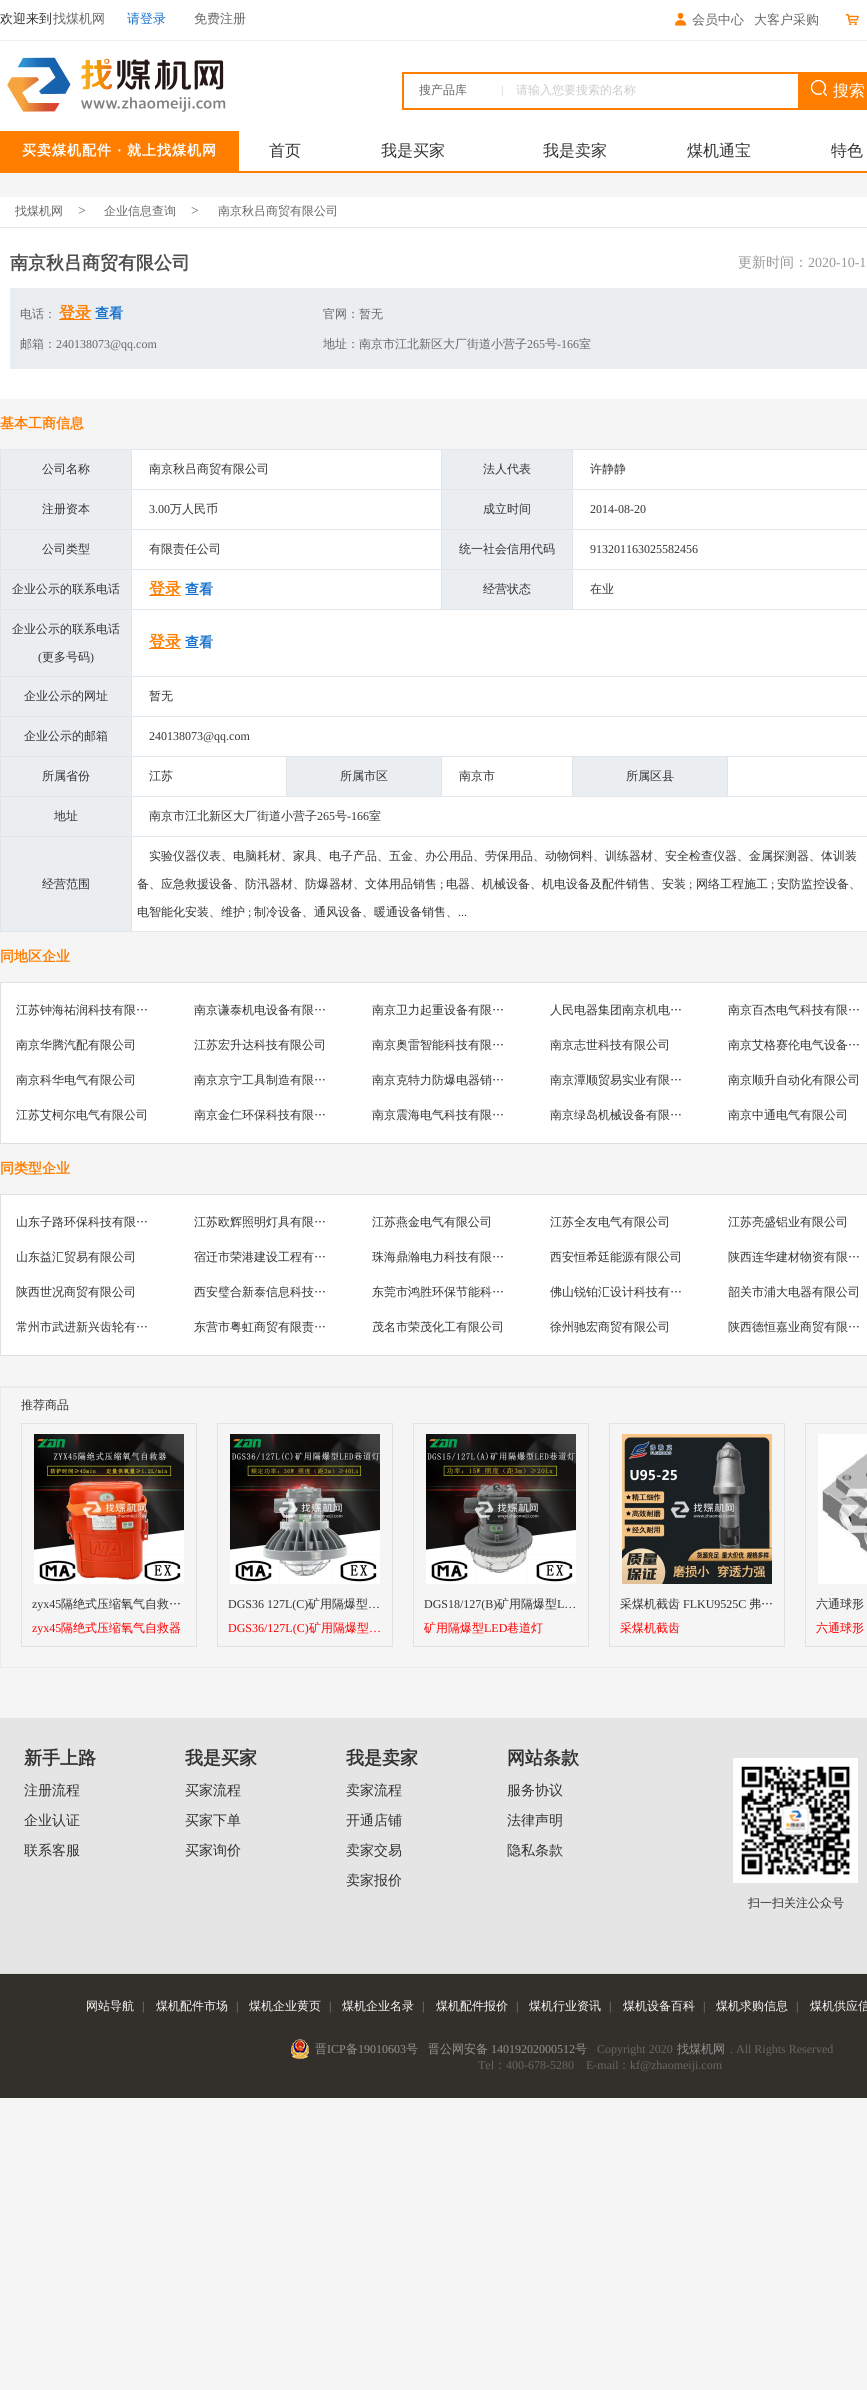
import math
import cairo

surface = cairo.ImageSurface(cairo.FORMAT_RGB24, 867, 2390)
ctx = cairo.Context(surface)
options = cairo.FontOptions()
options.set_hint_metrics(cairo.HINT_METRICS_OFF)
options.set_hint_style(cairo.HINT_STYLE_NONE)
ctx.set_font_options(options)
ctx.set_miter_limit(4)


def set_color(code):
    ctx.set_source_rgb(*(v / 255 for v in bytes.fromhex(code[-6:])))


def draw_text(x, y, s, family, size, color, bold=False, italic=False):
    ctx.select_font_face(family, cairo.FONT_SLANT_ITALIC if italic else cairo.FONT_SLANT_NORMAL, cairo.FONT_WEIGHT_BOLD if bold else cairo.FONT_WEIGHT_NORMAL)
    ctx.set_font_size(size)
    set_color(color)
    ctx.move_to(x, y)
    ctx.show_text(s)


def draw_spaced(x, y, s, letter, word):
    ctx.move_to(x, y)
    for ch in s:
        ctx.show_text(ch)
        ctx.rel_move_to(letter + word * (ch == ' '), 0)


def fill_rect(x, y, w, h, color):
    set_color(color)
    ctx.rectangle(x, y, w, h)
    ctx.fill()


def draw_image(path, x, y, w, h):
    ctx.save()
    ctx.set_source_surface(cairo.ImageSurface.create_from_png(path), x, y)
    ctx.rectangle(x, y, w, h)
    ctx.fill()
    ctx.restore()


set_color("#f5f5f5")
ctx.paint()
fill_rect(0, 0, 867, 40, "#ffffff")
fill_rect(0, 40, 867, 1, "#f0f0f0")
draw_text(0, 23, "欢迎来到", "WenQuanYi Zen Hei Medium", 13, "#333333")
draw_text(53, 23, "找煤机网", "WenQuanYi Zen Hei Medium", 13, "#666666")
draw_text(127, 23, "请登录", "WenQuanYi Zen Hei Medium", 13, "#1470cc")
draw_text(194, 23, "免费注册", "WenQuanYi Zen Hei Medium", 13, "#666666")
draw_image("assets/img1.png", 675, 13, 11, 13)
draw_text(692, 24, "会员中心", "WenQuanYi Zen Hei Medium", 13, "#666666")
draw_text(754, 24, "大客户采购", "WenQuanYi Zen Hei Medium", 13, "#666666")
draw_image("assets/img2.png", 846, 14, 13, 11)
fill_rect(0, 41, 867, 130, "#ffffff")
draw_image("assets/img3.png", 7, 57, 219, 55)
ctx.rectangle(403, 73, 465, 36)
set_color("#ff7e00")
ctx.stroke()
draw_text(419, 94, "搜产品库", "WenQuanYi Zen Hei Medium", 12, "#666666")
draw_text(501, 94, "|", "Liberation Serif", 12, "#cccccc")
draw_text(516, 94, "请输入您要搜索的名称", "WenQuanYi Zen Hei Medium", 12, "#cccccc")
fill_rect(798, 74, 69, 34, "#ff7e00")
draw_image("assets/img4.png", 811, 80, 16, 16)
draw_text(833, 96, "搜索", "WenQuanYi Zen Hei Medium", 16, "#ffffff")
fill_rect(0, 171, 867, 2, "#ff7e00")
fill_rect(0, 131, 239, 40, "#ff7e00")
ctx.select_font_face("WenQuanYi Zen Hei", cairo.FONT_SLANT_NORMAL, cairo.FONT_WEIGHT_BOLD)
ctx.set_font_size(14)
set_color("#ffffff")
draw_spaced(22, 155, "买卖煤机配件", 1, 0)
ctx.select_font_face("Liberation Serif", cairo.FONT_SLANT_NORMAL, cairo.FONT_WEIGHT_BOLD)
draw_spaced(117, 155, "·", 1, 0)
ctx.select_font_face("WenQuanYi Zen Hei", cairo.FONT_SLANT_NORMAL, cairo.FONT_WEIGHT_BOLD)
draw_spaced(127, 155, "就上找煤机网", 1, 0)
draw_text(269, 156, "首页", "WenQuanYi Zen Hei Medium", 16, "#333333")
draw_text(381, 156, "我是买家", "WenQuanYi Zen Hei Medium", 16, "#333333")
draw_text(543, 156, "我是卖家", "WenQuanYi Zen Hei Medium", 16, "#333333")
draw_text(687, 156, "煤机通宝", "WenQuanYi Zen Hei Medium", 16, "#333333")
draw_text(831, 156, "特色", "WenQuanYi Zen Hei Medium", 16, "#333333")
fill_rect(0, 197, 867, 30, "#ffffff")
fill_rect(0, 227, 867, 1, "#eaeaea")
draw_text(15, 215, "找煤机网", "WenQuanYi Zen Hei Medium", 12, "#666666")
draw_text(78, 215, ">", "Liberation Serif", 14, "#666666")
draw_text(104, 215, "企业信息查询", "WenQuanYi Zen Hei Medium", 12, "#666666")
draw_text(191, 215, ">", "Liberation Serif", 14, "#666666")
draw_text(218, 215, "南京秋吕商贸有限公司", "WenQuanYi Zen Hei Medium", 12, "#666666")
fill_rect(0, 228, 867, 171, "#ffffff")
draw_text(10, 269, "南京秋吕商贸有限公司", "WenQuanYi Zen Hei", 18, "#4e4e4e", bold=True)
draw_text(738, 267, "更新时间：", "WenQuanYi Zen Hei Medium", 14, "#999999")
draw_text(808, 267, "2020-10-1", "Liberation Serif", 14, "#999999")
fill_rect(10, 288, 857, 81, "#ebeef1")
draw_text(20, 318, "电话：", "WenQuanYi Zen Hei Medium", 12, "#666666")
fill_rect(59, 319, 32, 1, "#ff7e00")
draw_text(59, 318, "登录", "WenQuanYi Zen Hei", 16, "#ff7e00", bold=True)
draw_text(95, 318, "查看", "WenQuanYi Zen Hei", 14, "#1470cc", bold=True)
draw_text(323, 318, "官网：暂无", "WenQuanYi Zen Hei Medium", 12, "#666666")
draw_text(20, 348, "邮箱：", "WenQuanYi Zen Hei Medium", 12, "#666666")
draw_text(56, 348, "240138073@qq.com", "Liberation Serif", 12, "#666666")
draw_text(323, 348, "地址：南京市江北新区大厂街道小营子", "WenQuanYi Zen Hei Medium", 12, "#666666")
draw_text(527, 348, "265", "Liberation Serif", 12, "#666666")
draw_text(545, 348, "号", "WenQuanYi Zen Hei Medium", 12, "#666666")
draw_text(557, 348, "-166", "Liberation Serif", 12, "#666666")
draw_text(579, 348, "室", "WenQuanYi Zen Hei Medium", 12, "#666666")
draw_text(0, 428, "基本工商信息", "WenQuanYi Zen Hei", 14, "#ff7e00", bold=True)
fill_rect(1, 450, 130, 39, "#ebeef1")
fill_rect(572, 449, 295, 1, "#e1e6eb")
fill_rect(572, 489, 295, 1, "#e1e6eb")
fill_rect(572, 529, 295, 1, "#e1e6eb")
fill_rect(572, 569, 295, 1, "#e1e6eb")
fill_rect(131, 609, 736, 1, "#e1e6eb")
fill_rect(572, 569, 1, 41, "#e1e6eb")
fill_rect(441, 569, 132, 1, "#e1e6eb")
fill_rect(572, 529, 1, 41, "#e1e6eb")
fill_rect(441, 529, 132, 1, "#e1e6eb")
fill_rect(572, 489, 1, 41, "#e1e6eb")
fill_rect(441, 489, 132, 1, "#e1e6eb")
fill_rect(572, 449, 1, 41, "#e1e6eb")
fill_rect(441, 449, 132, 1, "#e1e6eb")
fill_rect(441, 569, 1, 41, "#e1e6eb")
fill_rect(131, 569, 311, 1, "#e1e6eb")
fill_rect(441, 529, 1, 41, "#e1e6eb")
fill_rect(131, 529, 311, 1, "#e1e6eb")
fill_rect(441, 489, 1, 41, "#e1e6eb")
fill_rect(131, 489, 311, 1, "#e1e6eb")
fill_rect(441, 449, 1, 41, "#e1e6eb")
fill_rect(131, 449, 311, 1, "#e1e6eb")
fill_rect(131, 676, 736, 1, "#e1e6eb")
fill_rect(131, 716, 736, 1, "#e1e6eb")
fill_rect(727, 756, 140, 1, "#e1e6eb")
fill_rect(131, 796, 736, 1, "#e1e6eb")
fill_rect(727, 756, 1, 41, "#e1e6eb")
fill_rect(572, 756, 156, 1, "#e1e6eb")
fill_rect(572, 756, 1, 41, "#e1e6eb")
fill_rect(441, 756, 132, 1, "#e1e6eb")
fill_rect(441, 756, 1, 41, "#e1e6eb")
fill_rect(286, 756, 156, 1, "#e1e6eb")
fill_rect(286, 756, 1, 41, "#e1e6eb")
fill_rect(131, 756, 156, 1, "#e1e6eb")
fill_rect(131, 836, 736, 1, "#e1e6eb")
fill_rect(131, 931, 736, 1, "#e1e6eb")
fill_rect(131, 836, 1, 96, "#e1e6eb")
fill_rect(0, 836, 132, 1, "#e1e6eb")
fill_rect(131, 796, 1, 41, "#e1e6eb")
fill_rect(0, 796, 132, 1, "#e1e6eb")
fill_rect(131, 756, 1, 41, "#e1e6eb")
fill_rect(0, 756, 132, 1, "#e1e6eb")
fill_rect(131, 716, 1, 41, "#e1e6eb")
fill_rect(0, 716, 132, 1, "#e1e6eb")
fill_rect(131, 676, 1, 41, "#e1e6eb")
fill_rect(0, 676, 132, 1, "#e1e6eb")
fill_rect(131, 609, 1, 68, "#e1e6eb")
fill_rect(0, 609, 132, 1, "#e1e6eb")
fill_rect(131, 569, 1, 41, "#e1e6eb")
fill_rect(0, 569, 132, 1, "#e1e6eb")
fill_rect(131, 529, 1, 41, "#e1e6eb")
fill_rect(0, 529, 132, 1, "#e1e6eb")
fill_rect(131, 489, 1, 41, "#e1e6eb")
fill_rect(0, 489, 132, 1, "#e1e6eb")
fill_rect(131, 449, 1, 41, "#e1e6eb")
fill_rect(0, 449, 132, 1, "#e1e6eb")
fill_rect(0, 931, 132, 1, "#e1e6eb")
fill_rect(0, 836, 1, 96, "#e1e6eb")
fill_rect(0, 796, 1, 41, "#e1e6eb")
fill_rect(0, 756, 1, 41, "#e1e6eb")
fill_rect(0, 716, 1, 41, "#e1e6eb")
fill_rect(0, 676, 1, 41, "#e1e6eb")
fill_rect(0, 609, 1, 68, "#e1e6eb")
fill_rect(0, 569, 1, 41, "#e1e6eb")
fill_rect(0, 529, 1, 41, "#e1e6eb")
fill_rect(0, 489, 1, 41, "#e1e6eb")
fill_rect(0, 449, 1, 41, "#e1e6eb")
draw_text(42, 473, "公司名称", "WenQuanYi Zen Hei Medium", 12, "#333333")
fill_rect(132, 450, 309, 39, "#ffffff")
draw_text(149, 473, "南京秋吕商贸有限公司", "WenQuanYi Zen Hei Medium", 12, "#333333")
fill_rect(442, 450, 130, 39, "#ebeef1")
draw_text(483, 473, "法人代表", "WenQuanYi Zen Hei Medium", 12, "#333333")
fill_rect(573, 450, 294, 39, "#ffffff")
draw_text(590, 473, "许静静", "WenQuanYi Zen Hei Medium", 12, "#333333")
fill_rect(1, 490, 130, 39, "#ebeef1")
draw_text(42, 513, "注册资本", "WenQuanYi Zen Hei Medium", 12, "#333333")
fill_rect(132, 490, 309, 39, "#ffffff")
draw_text(149, 513, "3.00", "Liberation Serif", 12, "#333333")
draw_text(170, 513, "万人民币", "WenQuanYi Zen Hei Medium", 12, "#333333")
fill_rect(442, 490, 130, 39, "#ebeef1")
draw_text(483, 513, "成立时间", "WenQuanYi Zen Hei Medium", 12, "#333333")
fill_rect(573, 490, 294, 39, "#ffffff")
draw_text(590, 513, "2014-08-20", "Liberation Serif", 12, "#333333")
fill_rect(1, 530, 130, 39, "#ebeef1")
draw_text(42, 553, "公司类型", "WenQuanYi Zen Hei Medium", 12, "#333333")
fill_rect(132, 530, 309, 39, "#ffffff")
draw_text(149, 553, "有限责任公司", "WenQuanYi Zen Hei Medium", 12, "#333333")
fill_rect(442, 530, 130, 39, "#ebeef1")
draw_text(459, 553, "统一社会信用代码", "WenQuanYi Zen Hei Medium", 12, "#333333")
fill_rect(573, 530, 294, 39, "#ffffff")
draw_text(590, 553, "913201163025582456", "Liberation Serif", 12, "#333333")
fill_rect(1, 570, 130, 39, "#ebeef1")
draw_text(12, 593, "企业公示的联系电话", "WenQuanYi Zen Hei Medium", 12, "#333333")
fill_rect(132, 570, 309, 39, "#ffffff")
fill_rect(149, 595, 32, 1, "#ff7e00")
draw_text(149, 594, "登录", "WenQuanYi Zen Hei", 16, "#ff7e00", bold=True)
draw_text(185, 594, "查看", "WenQuanYi Zen Hei", 14, "#1470cc", bold=True)
fill_rect(442, 570, 130, 39, "#ebeef1")
draw_text(483, 593, "经营状态", "WenQuanYi Zen Hei Medium", 12, "#333333")
fill_rect(573, 570, 294, 39, "#ffffff")
draw_text(590, 593, "在业", "WenQuanYi Zen Hei Medium", 12, "#333333")
fill_rect(1, 610, 130, 66, "#ebeef1")
draw_text(12, 633, "企业公示的联系电话", "WenQuanYi Zen Hei Medium", 12, "#333333")
draw_text(38, 661, "(", "Liberation Serif", 12, "#333333")
draw_text(42, 661, "更多号码", "WenQuanYi Zen Hei Medium", 12, "#333333")
draw_text(90, 661, ")", "Liberation Serif", 12, "#333333")
fill_rect(132, 610, 735, 66, "#ffffff")
fill_rect(149, 648, 32, 1, "#ff7e00")
draw_text(149, 647, "登录", "WenQuanYi Zen Hei", 16, "#ff7e00", bold=True)
draw_text(185, 647, "查看", "WenQuanYi Zen Hei", 14, "#1470cc", bold=True)
fill_rect(1, 677, 130, 39, "#ebeef1")
draw_text(24, 700, "企业公示的网址", "WenQuanYi Zen Hei Medium", 12, "#333333")
fill_rect(132, 677, 735, 39, "#ffffff")
draw_text(149, 700, "暂无", "WenQuanYi Zen Hei Medium", 12, "#333333")
fill_rect(1, 717, 130, 39, "#ebeef1")
draw_text(24, 740, "企业公示的邮箱", "WenQuanYi Zen Hei Medium", 12, "#333333")
fill_rect(132, 717, 735, 39, "#ffffff")
draw_text(149, 740, "240138073@qq.com", "Liberation Serif", 12, "#333333")
fill_rect(1, 757, 130, 39, "#ebeef1")
draw_text(42, 780, "所属省份", "WenQuanYi Zen Hei Medium", 12, "#333333")
fill_rect(132, 757, 154, 39, "#ffffff")
draw_text(149, 780, "江苏", "WenQuanYi Zen Hei Medium", 12, "#333333")
fill_rect(287, 757, 154, 39, "#ebeef1")
draw_text(340, 780, "所属市区", "WenQuanYi Zen Hei Medium", 12, "#333333")
fill_rect(442, 757, 130, 39, "#ffffff")
draw_text(459, 780, "南京市", "WenQuanYi Zen Hei Medium", 12, "#333333")
fill_rect(573, 757, 154, 39, "#ebeef1")
draw_text(626, 780, "所属区县", "WenQuanYi Zen Hei Medium", 12, "#333333")
fill_rect(728, 757, 139, 39, "#ffffff")
fill_rect(1, 797, 130, 39, "#ebeef1")
draw_text(54, 820, "地址", "WenQuanYi Zen Hei Medium", 12, "#333333")
fill_rect(132, 797, 735, 39, "#ffffff")
draw_text(149, 820, "南京市江北新区大厂街道小营子", "WenQuanYi Zen Hei Medium", 12, "#333333")
draw_text(317, 820, "265", "Liberation Serif", 12, "#333333")
draw_text(335, 820, "号", "WenQuanYi Zen Hei Medium", 12, "#333333")
draw_text(347, 820, "-166", "Liberation Serif", 12, "#333333")
draw_text(369, 820, "室", "WenQuanYi Zen Hei Medium", 12, "#333333")
fill_rect(1, 837, 130, 94, "#ebeef1")
draw_text(42, 888, "经营范围", "WenQuanYi Zen Hei Medium", 12, "#333333")
fill_rect(132, 837, 735, 94, "#ffffff")
draw_text(149, 860, "实验仪器仪表、电脑耗材、家具、电子产品、五金、办公用品、劳保用品、动物饲料、训练器材、安全检查仪器、金属探测器、体训装", "WenQuanYi Zen Hei Medium", 12, "#333333")
draw_text(137, 888, "备、应急救援设备、防汛器材、防爆器材、文体用品销售", "WenQuanYi Zen Hei Medium", 12, "#333333")
draw_text(440, 888, ";", "Liberation Serif", 12, "#333333")
draw_text(446, 888, "电器、机械设备、机电设备及配件销售、安装", "WenQuanYi Zen Hei Medium", 12, "#333333")
draw_text(689, 888, ";", "Liberation Serif", 12, "#333333")
draw_text(696, 888, "网络工程施工", "WenQuanYi Zen Hei Medium", 12, "#333333")
draw_text(771, 888, ";", "Liberation Serif", 12, "#333333")
draw_text(777, 888, "安防监控设备、", "WenQuanYi Zen Hei Medium", 12, "#333333")
draw_text(137, 916, "电智能化安装、维护", "WenQuanYi Zen Hei Medium", 12, "#333333")
draw_text(248, 916, ";", "Liberation Serif", 12, "#333333")
draw_text(254, 916, "制冷设备、通风设备、暖通设备销售、", "WenQuanYi Zen Hei Medium", 12, "#333333")
draw_text(458, 916, "...", "Liberation Serif", 12, "#333333")
draw_text(0, 961, "同地区企业", "WenQuanYi Zen Hei", 14, "#ff7e00", bold=True)
set_color("#ffffff")
ctx.rectangle(0.5, 982.5, 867, 161)
ctx.fill_preserve()
set_color("#e0e0e0")
ctx.set_line_width(1)
ctx.stroke()
draw_text(16, 1014, "江苏钟海祐润科技有限…", "WenQuanYi Zen Hei Medium", 12, "#333333")
draw_text(194, 1014, "南京谦泰机电设备有限…", "WenQuanYi Zen Hei Medium", 12, "#333333")
draw_text(372, 1014, "南京卫力起重设备有限…", "WenQuanYi Zen Hei Medium", 12, "#333333")
draw_text(550, 1014, "人民电器集团南京机电…", "WenQuanYi Zen Hei Medium", 12, "#333333")
draw_text(728, 1014, "南京百杰电气科技有限…", "WenQuanYi Zen Hei Medium", 12, "#333333")
draw_text(16, 1049, "南京华腾汽配有限公司", "WenQuanYi Zen Hei Medium", 12, "#333333")
draw_text(194, 1049, "江苏宏升达科技有限公司", "WenQuanYi Zen Hei Medium", 12, "#333333")
draw_text(372, 1049, "南京奥雷智能科技有限…", "WenQuanYi Zen Hei Medium", 12, "#333333")
draw_text(550, 1049, "南京志世科技有限公司", "WenQuanYi Zen Hei Medium", 12, "#333333")
draw_text(728, 1049, "南京艾格赛伦电气设备…", "WenQuanYi Zen Hei Medium", 12, "#333333")
draw_text(16, 1084, "南京科华电气有限公司", "WenQuanYi Zen Hei Medium", 12, "#333333")
draw_text(194, 1084, "南京京宁工具制造有限…", "WenQuanYi Zen Hei Medium", 12, "#333333")
draw_text(372, 1084, "南京克特力防爆电器销…", "WenQuanYi Zen Hei Medium", 12, "#333333")
draw_text(550, 1084, "南京潭顺贸易实业有限…", "WenQuanYi Zen Hei Medium", 12, "#333333")
draw_text(728, 1084, "南京顺升自动化有限公司", "WenQuanYi Zen Hei Medium", 12, "#333333")
draw_text(16, 1119, "江苏艾柯尔电气有限公司", "WenQuanYi Zen Hei Medium", 12, "#333333")
draw_text(194, 1119, "南京金仁环保科技有限…", "WenQuanYi Zen Hei Medium", 12, "#333333")
draw_text(372, 1119, "南京震海电气科技有限…", "WenQuanYi Zen Hei Medium", 12, "#333333")
draw_text(550, 1119, "南京绿岛机械设备有限…", "WenQuanYi Zen Hei Medium", 12, "#333333")
draw_text(728, 1119, "南京中通电气有限公司", "WenQuanYi Zen Hei Medium", 12, "#333333")
draw_text(0, 1173, "同类型企业", "WenQuanYi Zen Hei", 14, "#ff7e00", bold=True)
set_color("#ffffff")
ctx.rectangle(0.5, 1194.5, 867, 161)
ctx.fill_preserve()
set_color("#e0e0e0")
ctx.stroke()
draw_text(16, 1226, "山东子路环保科技有限…", "WenQuanYi Zen Hei Medium", 12, "#333333")
draw_text(194, 1226, "江苏欧辉照明灯具有限…", "WenQuanYi Zen Hei Medium", 12, "#333333")
draw_text(372, 1226, "江苏燕金电气有限公司", "WenQuanYi Zen Hei Medium", 12, "#333333")
draw_text(550, 1226, "江苏全友电气有限公司", "WenQuanYi Zen Hei Medium", 12, "#333333")
draw_text(728, 1226, "江苏亮盛铝业有限公司", "WenQuanYi Zen Hei Medium", 12, "#333333")
draw_text(16, 1261, "山东益汇贸易有限公司", "WenQuanYi Zen Hei Medium", 12, "#333333")
draw_text(194, 1261, "宿迁市荣港建设工程有…", "WenQuanYi Zen Hei Medium", 12, "#333333")
draw_text(372, 1261, "珠海鼎瀚电力科技有限…", "WenQuanYi Zen Hei Medium", 12, "#333333")
draw_text(550, 1261, "西安恒希廷能源有限公司", "WenQuanYi Zen Hei Medium", 12, "#333333")
draw_text(728, 1261, "陕西连华建材物资有限…", "WenQuanYi Zen Hei Medium", 12, "#333333")
draw_text(16, 1296, "陕西世况商贸有限公司", "WenQuanYi Zen Hei Medium", 12, "#333333")
draw_text(194, 1296, "西安璧合新泰信息科技…", "WenQuanYi Zen Hei Medium", 12, "#333333")
draw_text(372, 1296, "东莞市鸿胜环保节能科…", "WenQuanYi Zen Hei Medium", 12, "#333333")
draw_text(550, 1296, "佛山锐铂汇设计科技有…", "WenQuanYi Zen Hei Medium", 12, "#333333")
draw_text(728, 1296, "韶关市浦大电器有限公司", "WenQuanYi Zen Hei Medium", 12, "#333333")
draw_text(16, 1331, "常州市武进新兴齿轮有…", "WenQuanYi Zen Hei Medium", 12, "#333333")
draw_text(194, 1331, "东营市粤虹商贸有限责…", "WenQuanYi Zen Hei Medium", 12, "#333333")
draw_text(372, 1331, "茂名市荣茂化工有限公司", "WenQuanYi Zen Hei Medium", 12, "#333333")
draw_text(550, 1331, "徐州驰宏商贸有限公司", "WenQuanYi Zen Hei Medium", 12, "#333333")
draw_text(728, 1331, "陕西德恒嘉业商贸有限…", "WenQuanYi Zen Hei Medium", 12, "#333333")
ctx.rectangle(0.5, 1386.5, 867, 281)
set_color("#eaeaea")
ctx.stroke()
fill_rect(1, 1387, 866, 1, "#eaeaea")
draw_text(21, 1409, "推荐商品", "WenQuanYi Zen Hei Medium", 12, "#333333")
ctx.rectangle(21.5, 1423.5, 175, 223)
set_color("#e2e2e2")
ctx.stroke()
draw_image("assets/img5.png", 34, 1434, 150, 150)
draw_text(32, 1608, "zyx45", "Liberation Serif", 12, "#333333")
draw_text(61, 1608, "隔绝式压缩氧气自救…", "WenQuanYi Zen Hei Medium", 12, "#333333")
draw_text(32, 1632, "zyx45", "Liberation Serif", 12, "#ff0000")
draw_text(61, 1632, "隔绝式压缩氧气自救器", "WenQuanYi Zen Hei Medium", 12, "#ff0000")
ctx.rectangle(217.5, 1423.5, 175, 223)
set_color("#e2e2e2")
ctx.stroke()
draw_image("assets/img6.png", 230, 1434, 150, 150)
draw_text(228, 1608, "DGS36 127L(C)", "Liberation Serif", 12, "#333333")
draw_text(308, 1608, "矿用隔爆型", "WenQuanYi Zen Hei Medium", 12, "#333333")
draw_text(368, 1608, "…", "Liberation Serif", 12, "#333333")
draw_text(228, 1632, "DGS36/127L(C)", "Liberation Serif", 12, "#ff0000")
draw_text(309, 1632, "矿用隔爆型", "WenQuanYi Zen Hei Medium", 12, "#ff0000")
draw_text(369, 1632, "…", "Liberation Serif", 12, "#ff0000")
ctx.rectangle(413.5, 1423.5, 175, 223)
set_color("#e2e2e2")
ctx.stroke()
draw_image("assets/img7.png", 426, 1434, 150, 150)
draw_text(424, 1608, "DGS18/127(B)", "Liberation Serif", 12, "#333333")
draw_text(497, 1608, "矿用隔爆型", "WenQuanYi Zen Hei Medium", 12, "#333333")
draw_text(557, 1608, "L…", "Liberation Serif", 12, "#333333")
draw_text(424, 1632, "矿用隔爆型", "WenQuanYi Zen Hei Medium", 12, "#ff0000")
draw_text(484, 1632, "LED", "Liberation Serif", 12, "#ff0000")
draw_text(507, 1632, "巷道灯", "WenQuanYi Zen Hei Medium", 12, "#ff0000")
ctx.rectangle(609.5, 1423.5, 175, 223)
set_color("#e2e2e2")
ctx.stroke()
draw_image("assets/img8.png", 622, 1434, 150, 150)
draw_text(620, 1608, "采煤机截齿", "WenQuanYi Zen Hei Medium", 12, "#333333")
draw_text(683, 1608, "FLKU9525C", "Liberation Serif", 12, "#333333")
draw_text(749, 1608, "弗…", "WenQuanYi Zen Hei Medium", 12, "#333333")
draw_text(620, 1632, "采煤机截齿", "WenQuanYi Zen Hei Medium", 12, "#ff0000")
ctx.rectangle(805.5, 1423.5, 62, 223)
set_color("#e2e2e2")
ctx.stroke()
draw_image("assets/img9.png", 818, 1434, 49, 150)
set_color("#333333")
draw_spaced(816, 1608, "六通球形", 0, -1)
draw_text(816, 1632, "六通球形", "WenQuanYi Zen Hei Medium", 12, "#ff0000")
fill_rect(0, 1718, 867, 255, "#e5e5e5")
draw_text(24, 1764, "新手上路", "WenQuanYi Zen Hei", 18, "#333333", bold=True)
draw_text(24, 1795, "注册流程", "WenQuanYi Zen Hei Medium", 14, "#333333")
draw_text(24, 1825, "企业认证", "WenQuanYi Zen Hei Medium", 14, "#333333")
draw_text(24, 1855, "联系客服", "WenQuanYi Zen Hei Medium", 14, "#333333")
draw_text(185, 1764, "我是买家", "WenQuanYi Zen Hei", 18, "#333333", bold=True)
draw_text(185, 1795, "买家流程", "WenQuanYi Zen Hei Medium", 14, "#333333")
draw_text(185, 1825, "买家下单", "WenQuanYi Zen Hei Medium", 14, "#333333")
draw_text(185, 1855, "买家询价", "WenQuanYi Zen Hei Medium", 14, "#333333")
draw_text(346, 1764, "我是卖家", "WenQuanYi Zen Hei", 18, "#333333", bold=True)
draw_text(346, 1795, "卖家流程", "WenQuanYi Zen Hei Medium", 14, "#333333")
draw_text(346, 1825, "开通店铺", "WenQuanYi Zen Hei Medium", 14, "#333333")
draw_text(346, 1855, "卖家交易", "WenQuanYi Zen Hei Medium", 14, "#333333")
draw_text(346, 1885, "卖家报价", "WenQuanYi Zen Hei Medium", 14, "#333333")
draw_text(507, 1764, "网站条款", "WenQuanYi Zen Hei", 18, "#333333", bold=True)
draw_text(507, 1795, "服务协议", "WenQuanYi Zen Hei Medium", 14, "#333333")
draw_text(507, 1825, "法律声明", "WenQuanYi Zen Hei Medium", 14, "#333333")
draw_text(507, 1855, "隐私条款", "WenQuanYi Zen Hei Medium", 14, "#333333")
draw_image("assets/img10.png", 733, 1758, 125, 125)
draw_text(748, 1907, "扫一扫关注公众号", "WenQuanYi Zen Hei Medium", 12, "#333333")
fill_rect(0, 1974, 867, 124, "#33302b")
fill_rect(0, 1973, 867, 1, "#d9d9d9")
draw_text(86, 2010, "网站导航", "WenQuanYi Zen Hei Medium", 12, "#f9f9f9")
draw_text(142, 2010, "|", "Liberation Serif", 12, "#888888")
draw_text(156, 2010, "煤机配件市场", "WenQuanYi Zen Hei Medium", 12, "#f9f9f9")
draw_text(236, 2010, "|", "Liberation Serif", 12, "#888888")
draw_text(249, 2010, "煤机企业黄页", "WenQuanYi Zen Hei Medium", 12, "#f9f9f9")
draw_text(329, 2010, "|", "Liberation Serif", 12, "#888888")
draw_text(342, 2010, "煤机企业名录", "WenQuanYi Zen Hei Medium", 12, "#f9f9f9")
draw_text(422, 2010, "|", "Liberation Serif", 12, "#888888")
draw_text(436, 2010, "煤机配件报价", "WenQuanYi Zen Hei Medium", 12, "#f9f9f9")
draw_text(516, 2010, "|", "Liberation Serif", 12, "#888888")
draw_text(529, 2010, "煤机行业资讯", "WenQuanYi Zen Hei Medium", 12, "#f9f9f9")
draw_text(609, 2010, "|", "Liberation Serif", 12, "#888888")
draw_text(623, 2010, "煤机设备百科", "WenQuanYi Zen Hei Medium", 12, "#f9f9f9")
draw_text(703, 2010, "|", "Liberation Serif", 12, "#888888")
draw_text(716, 2010, "煤机求购信息", "WenQuanYi Zen Hei Medium", 12, "#f9f9f9")
draw_text(796, 2010, "|", "Liberation Serif", 12, "#888888")
draw_text(810, 2010, "煤机供应信", "WenQuanYi Zen Hei Medium", 12, "#f9f9f9")
draw_image("assets/img11.png", 291, 2039, 18, 20)
draw_text(315, 2053, "晋", "WenQuanYi Zen Hei Medium", 12, "#939393")
draw_text(327, 2053, "ICP", "Liberation Serif", 12, "#939393")
draw_text(346, 2053, "备", "WenQuanYi Zen Hei Medium", 12, "#939393")
draw_text(358, 2053, "19010603", "Liberation Serif", 12, "#939393")
draw_text(406, 2053, "号", "WenQuanYi Zen Hei Medium", 12, "#939393")
draw_text(428, 2053, "晋公网安备", "WenQuanYi Zen Hei Medium", 12, "#939393")
draw_text(491, 2053, "14019202000512", "Liberation Serif", 12, "#939393")
draw_text(575, 2053, "号", "WenQuanYi Zen Hei Medium", 12, "#939393")
draw_text(597, 2053, "Copyright 2020", "Liberation Serif", 12, "#666666")
draw_text(677, 2053, "找煤机网", "WenQuanYi Zen Hei Medium", 12, "#939393")
draw_text(730, 2053, ". All Rights Reserved", "Liberation Serif", 12, "#666666")
draw_text(478, 2069, "Tel", "Liberation Serif", 12, "#666666")
draw_text(494, 2069, "：", "WenQuanYi Zen Hei Medium", 12, "#666666")
draw_text(506, 2069, "400-678-5280    E-mail", "Liberation Serif", 12, "#666666")
draw_text(618, 2069, "：", "WenQuanYi Zen Hei Medium", 12, "#666666")
draw_text(630, 2069, "kf@zhaomeiji.com", "Liberation Serif", 12, "#666666")
surface.write_to_png("output.png")
